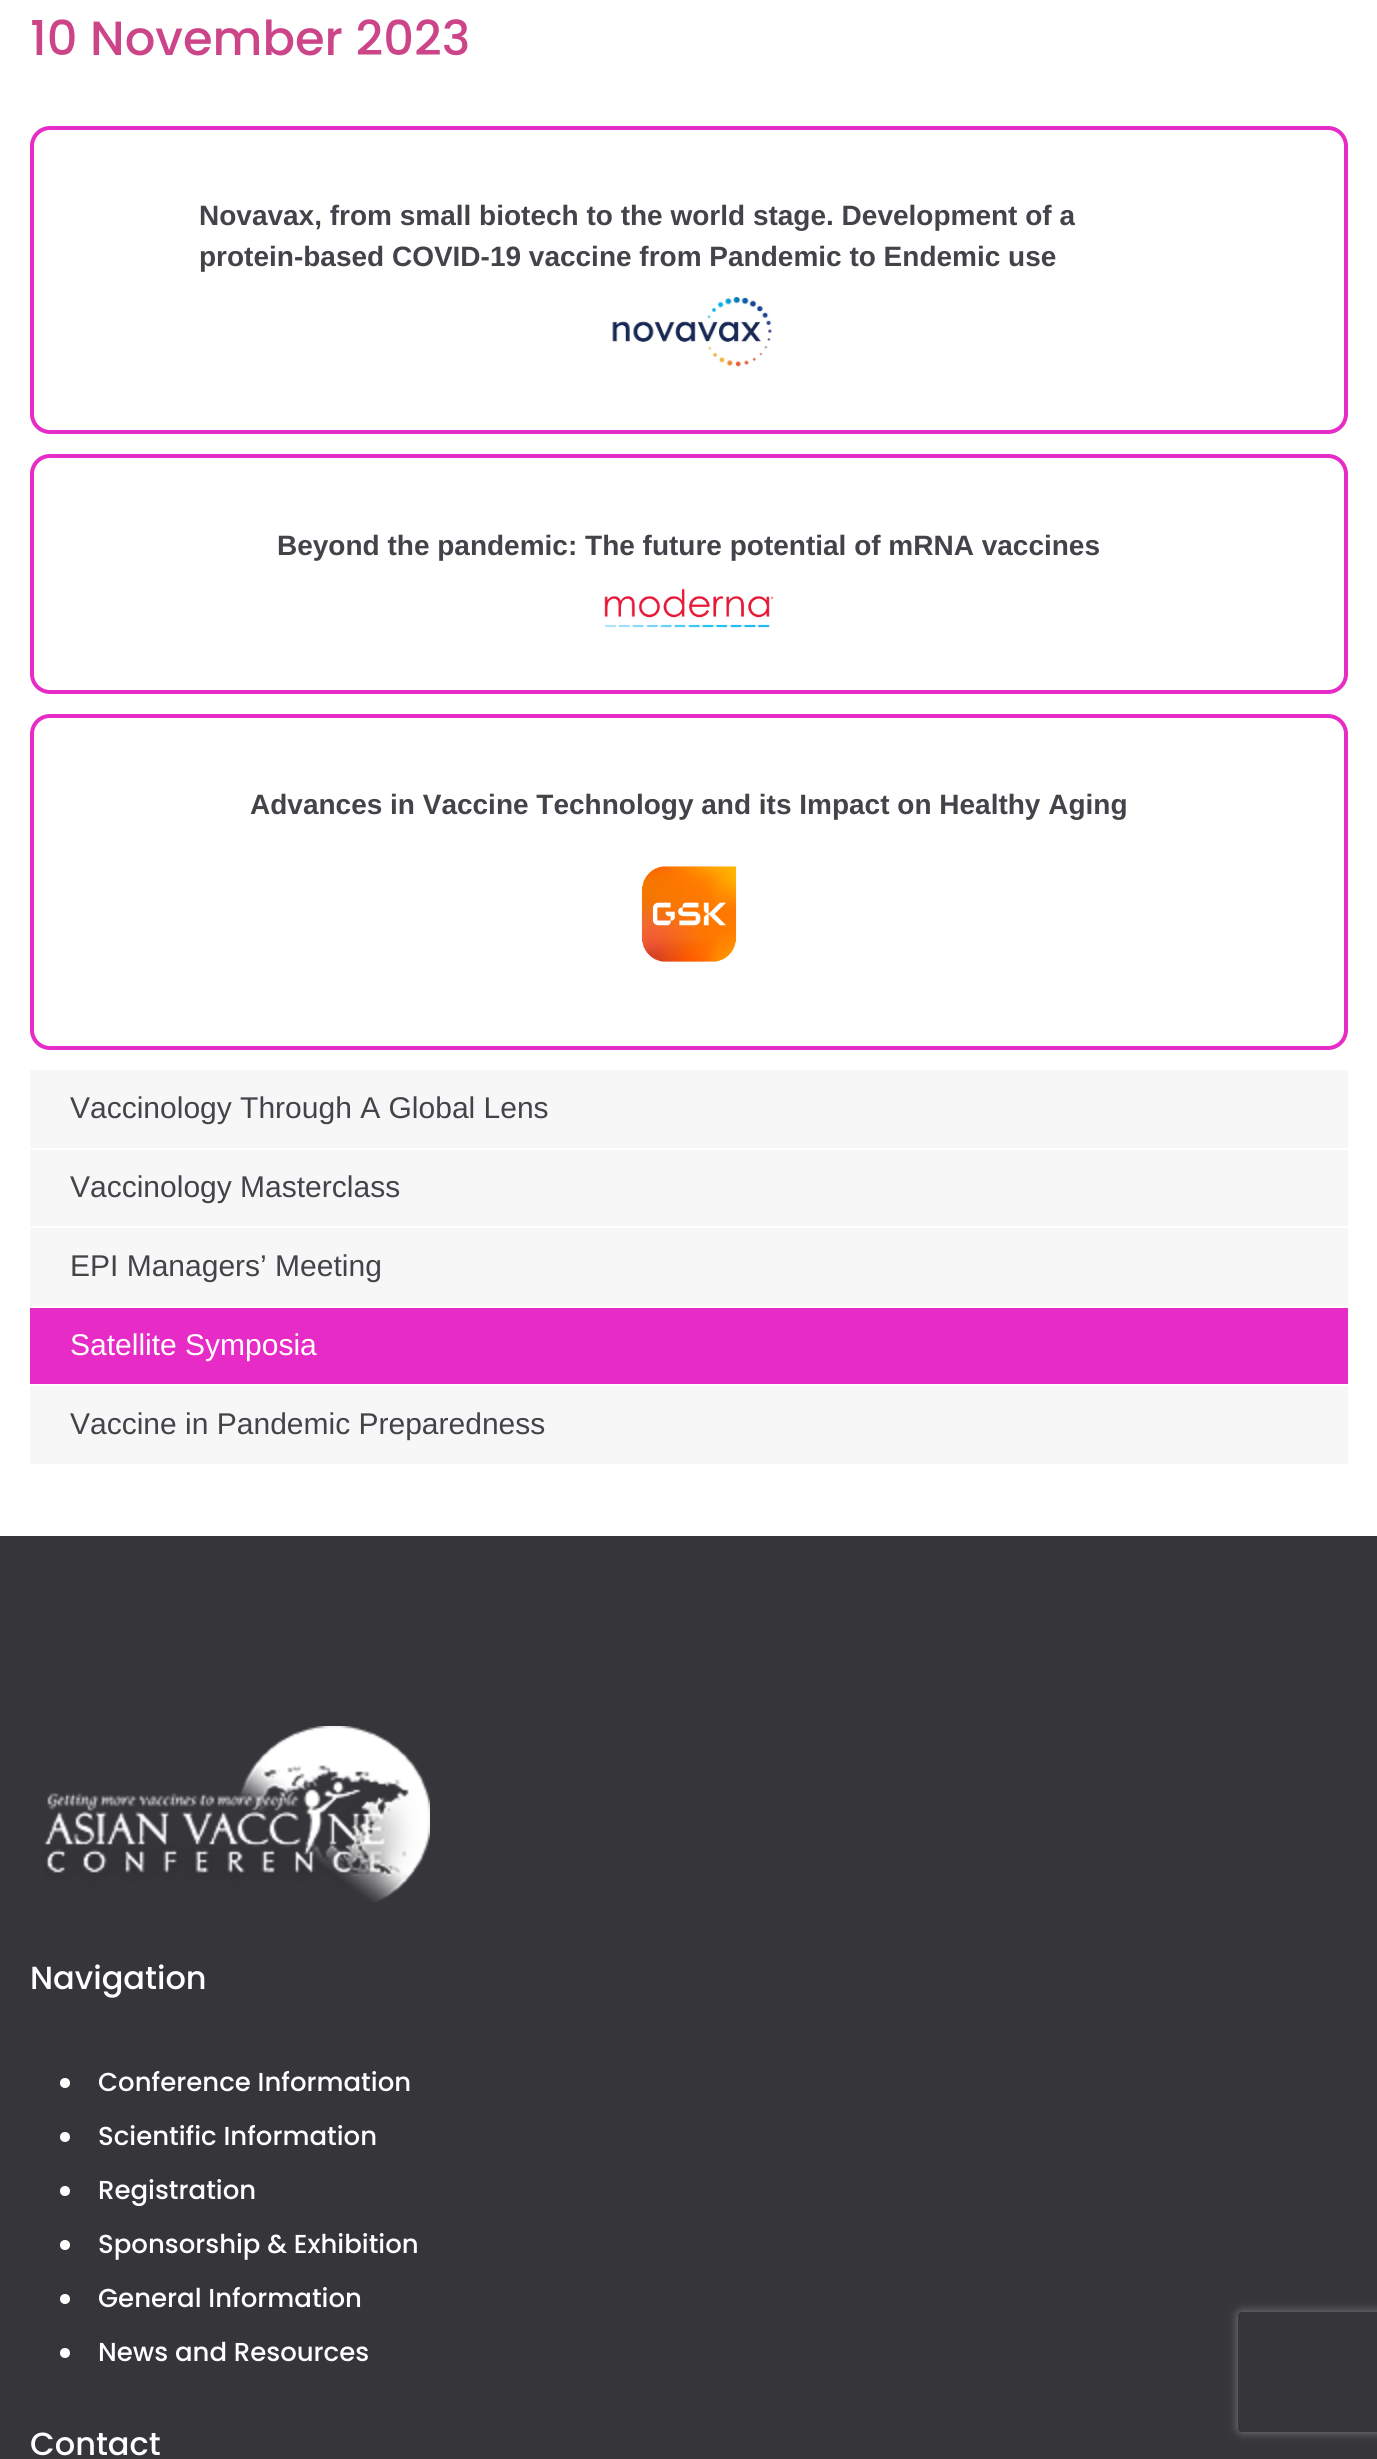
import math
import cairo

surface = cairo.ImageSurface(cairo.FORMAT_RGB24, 1377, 2459)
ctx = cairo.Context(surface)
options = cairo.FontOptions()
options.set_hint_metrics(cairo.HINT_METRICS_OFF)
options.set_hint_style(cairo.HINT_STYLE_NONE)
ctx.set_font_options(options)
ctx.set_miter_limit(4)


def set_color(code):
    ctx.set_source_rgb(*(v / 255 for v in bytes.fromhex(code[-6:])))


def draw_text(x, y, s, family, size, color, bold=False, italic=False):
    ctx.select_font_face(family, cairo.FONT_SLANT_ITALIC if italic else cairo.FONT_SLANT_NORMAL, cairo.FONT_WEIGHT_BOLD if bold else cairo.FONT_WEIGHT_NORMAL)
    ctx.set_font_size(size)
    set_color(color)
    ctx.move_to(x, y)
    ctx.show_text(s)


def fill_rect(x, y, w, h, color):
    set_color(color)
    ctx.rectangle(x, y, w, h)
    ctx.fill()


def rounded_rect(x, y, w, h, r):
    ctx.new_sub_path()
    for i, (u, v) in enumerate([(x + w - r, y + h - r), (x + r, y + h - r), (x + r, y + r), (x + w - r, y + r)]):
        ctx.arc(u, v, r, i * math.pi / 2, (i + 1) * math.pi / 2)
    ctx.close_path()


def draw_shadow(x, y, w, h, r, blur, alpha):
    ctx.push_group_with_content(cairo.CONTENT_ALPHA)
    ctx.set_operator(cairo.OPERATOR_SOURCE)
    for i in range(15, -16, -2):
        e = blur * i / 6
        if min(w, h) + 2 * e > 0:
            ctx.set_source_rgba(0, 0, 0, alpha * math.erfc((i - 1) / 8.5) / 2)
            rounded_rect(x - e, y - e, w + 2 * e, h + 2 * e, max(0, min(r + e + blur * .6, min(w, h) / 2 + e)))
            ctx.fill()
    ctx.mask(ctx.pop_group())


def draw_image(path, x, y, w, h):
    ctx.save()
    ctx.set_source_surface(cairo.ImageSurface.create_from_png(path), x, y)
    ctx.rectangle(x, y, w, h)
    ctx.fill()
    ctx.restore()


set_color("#ffffff")
ctx.paint()
draw_text(30, 55, "10 November 2023", "Poppins Medium", 48, "#cc4589")
rounded_rect(32, 128, 1314, 304, 18)
set_color("#e72bc7")
ctx.set_line_width(4)
ctx.stroke()
draw_text(199, 225, "Novavax, from small biotech to the world stage. Development of a", "Liberation Sans", 28, "#444349", bold=True)
draw_text(199, 266, "protein-based COVID-19 vaccine from Pandemic to Endemic use", "Liberation Sans", 28, "#444349", bold=True)
draw_image("assets/img1.png", 612, 296, 160, 71)
rounded_rect(32, 456, 1314, 236, 18)
set_color("#e72bc7")
ctx.stroke()
draw_text(277, 555, "Beyond the pandemic: The future potential of mRNA vaccines", "Liberation Sans", 28, "#444349", bold=True)
draw_image("assets/img2.png", 604, 588, 170, 40)
rounded_rect(32, 716, 1314, 332, 18)
set_color("#e72bc7")
ctx.stroke()
draw_text(250, 814, "Advances in Vaccine Technology and its Impact on Healthy Aging", "Liberation Sans", 28, "#444349", bold=True)
draw_image("assets/img3.png", 641, 866, 96, 96)
fill_rect(30, 1070, 1318, 78, "#f7f7f7")
draw_text(70, 1118, "Vaccinology Through A Global Lens", "Liberation Sans", 30, "#444349")
fill_rect(30, 1150, 1318, 76, "#f7f7f7")
draw_text(70, 1197, "Vaccinology Masterclass", "Liberation Sans", 30, "#444349")
fill_rect(30, 1228, 1318, 78, "#f7f7f7")
draw_text(70, 1276, "EPI Managers’ Meeting", "Liberation Sans", 30, "#444349")
fill_rect(30, 1308, 1318, 76, "#e72bc7")
draw_text(70, 1355, "Satellite Symposia", "Liberation Sans", 30, "#ffffff")
fill_rect(30, 1386, 1318, 78, "#f7f7f7")
draw_text(70, 1434, "Vaccine in Pandemic Preparedness", "Liberation Sans", 30, "#444349")
fill_rect(0, 1536, 1377, 923, "#36353a")
draw_image("assets/img4.png", 44, 1726, 386, 177)
draw_text(30, 1989, "Navigation", "Poppins Medium", 32, "#ffffff")
ctx.new_path()
ctx.arc(65, 2083, 5, 0, 2 * math.pi)
ctx.fill()
draw_text(98, 2091, "Conference Information", "Poppins Medium", 26, "#ffffff")
ctx.new_path()
ctx.arc(65, 2137, 5, 0, 2 * math.pi)
ctx.fill()
draw_text(98, 2145, "Scientific Information", "Poppins Medium", 26, "#ffffff")
ctx.new_path()
ctx.arc(65, 2191, 5, 0, 2 * math.pi)
ctx.fill()
draw_text(98, 2199, "Registration", "Poppins Medium", 26, "#ffffff")
ctx.new_path()
ctx.arc(65, 2245, 5, 0, 2 * math.pi)
ctx.fill()
draw_text(98, 2253, "Sponsorship & Exhibition", "Poppins Medium", 26, "#ffffff")
ctx.new_path()
ctx.arc(65, 2299, 5, 0, 2 * math.pi)
ctx.fill()
draw_text(98, 2307, "General Information", "Poppins Medium", 26, "#ffffff")
ctx.new_path()
ctx.arc(65, 2353, 5, 0, 2 * math.pi)
ctx.fill()
draw_text(98, 2361, "News and Resources", "Poppins Medium", 26, "#ffffff")
draw_text(30, 2455, "Contact", "Poppins Medium", 32, "#ffffff")
ctx.save()
ctx.set_fill_rule(cairo.FILL_RULE_EVEN_ODD)
ctx.new_path()
ctx.move_to(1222, 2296)
ctx.line_to(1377, 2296)
ctx.line_to(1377, 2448)
ctx.line_to(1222, 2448)
ctx.close_path()
ctx.move_to(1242, 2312)
ctx.line_to(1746, 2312)
ctx.curve_to(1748, 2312, 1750, 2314, 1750, 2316)
ctx.line_to(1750, 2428)
ctx.curve_to(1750, 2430, 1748, 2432, 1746, 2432)
ctx.line_to(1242, 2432)
ctx.curve_to(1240, 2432, 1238, 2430, 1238, 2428)
ctx.line_to(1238, 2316)
ctx.curve_to(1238, 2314, 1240, 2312, 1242, 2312)
ctx.close_path()
ctx.clip()
set_color("#808080")
draw_shadow(1238, 2312, 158, 120, 4, 5, 1)
ctx.restore()
surface.write_to_png("output.png")
